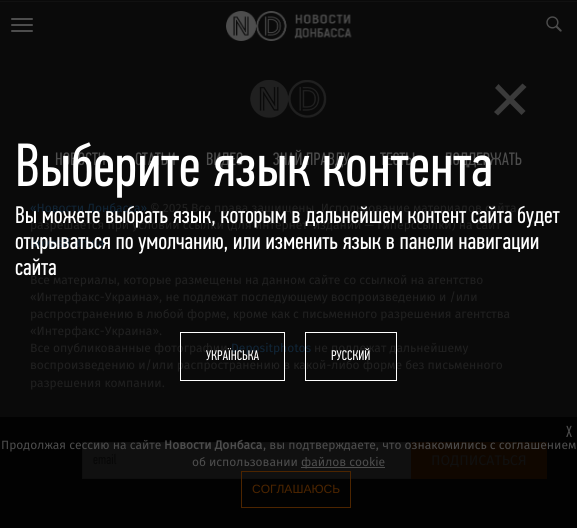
import math
import cairo

surface = cairo.ImageSurface(cairo.FORMAT_RGB24, 577, 528)
ctx = cairo.Context(surface)
options = cairo.FontOptions()
options.set_hint_metrics(cairo.HINT_METRICS_OFF)
options.set_hint_style(cairo.HINT_STYLE_NONE)
ctx.set_font_options(options)
ctx.set_miter_limit(4)


def set_color(code):
    ctx.set_source_rgb(*(v / 255 for v in bytes.fromhex(code[-6:])))


def draw_text(x, y, s, family, size, color, bold=False, italic=False):
    ctx.select_font_face(family, cairo.FONT_SLANT_ITALIC if italic else cairo.FONT_SLANT_NORMAL, cairo.FONT_WEIGHT_BOLD if bold else cairo.FONT_WEIGHT_NORMAL)
    ctx.set_font_size(size)
    set_color(color)
    ctx.move_to(x, y)
    ctx.show_text(s)


def fill_rect(x, y, w, h, color):
    set_color(color)
    ctx.rectangle(x, y, w, h)
    ctx.fill()


def rounded_rect(x, y, w, h, r):
    ctx.new_sub_path()
    for i, (u, v) in enumerate([(x + w - r, y + h - r), (x + r, y + h - r), (x + r, y + r), (x + w - r, y + r)]):
        ctx.arc(u, v, r, i * math.pi / 2, (i + 1) * math.pi / 2)
    ctx.close_path()


def draw_image(path, x, y, w, h):
    ctx.save()
    ctx.set_source_surface(cairo.ImageSurface.create_from_png(path), x, y)
    ctx.rectangle(x, y, w, h)
    ctx.fill()
    ctx.restore()


set_color("#0a0a0a")
ctx.paint()
fill_rect(0, 1, 577, 1, "#111111")
draw_image("assets/img1.png", 226, 11, 126, 30)
draw_image("assets/img2.png", 546, 16, 16, 16)
set_color("#4d4d4d")
rounded_rect(11, 18, 22, 2, 1)
ctx.fill()
rounded_rect(11, 24, 22, 2, 1)
ctx.fill()
rounded_rect(11, 30, 22, 2, 1)
ctx.fill()
set_color("#3b3b3b")
ctx.new_path()
ctx.move_to(510, 103.5)
ctx.line_to(498, 115.5)
ctx.line_to(494, 112)
ctx.line_to(506.5, 99.5)
ctx.line_to(495, 88)
ctx.line_to(498.5, 84)
ctx.line_to(510, 96)
ctx.line_to(522.5, 83.5)
ctx.line_to(526.5, 87)
ctx.line_to(514, 99.5)
ctx.line_to(525.5, 111)
ctx.line_to(521.5, 115)
ctx.close_path()
ctx.fill()
draw_image("assets/img10.png", 55, 152, 50, 14)
draw_image("assets/img11.png", 135, 152, 40, 14)
draw_image("assets/img12.png", 206, 152, 37, 16)
draw_image("assets/img13.png", 273, 149, 77, 19)
draw_image("assets/img14.png", 380, 152, 35, 14)
draw_image("assets/img15.png", 445, 152, 77, 16)
draw_image("assets/img3.png", 18, 142, 473, 56)
draw_text(30, 212, "«Новости Донбасса»", "Fira Sans", 12, "#102537")
draw_text(150, 212, "© 2025 Все права защищены. Использование материалов сайта", "Fira Sans", 12, "#202020")
draw_text(30, 229, "разрешается при условии ссылки (для интернет-изданий — гиперссылки) на сайт", "Fira Sans", 12, "#202020")
draw_image("assets/img4.png", 16, 205, 544, 23)
draw_text(30, 247, "novosti.dn.ua", "Fira Sans", 12, "#102537")
draw_text(105, 247, ".", "Fira Sans", 12, "#202020")
draw_image("assets/img5.png", 15, 237, 524, 17)
draw_text(30, 284, "Все материалы, которые размещены на данном сайте со ссылкой на агентство", "Fira Sans", 12, "#202020")
draw_image("assets/img6.png", 15, 258, 41, 18)
draw_text(30, 352, "Все опубликованные фотографии", "Fira Sans", 12, "#202020")
draw_text(231, 352, "Depositphotos", "Fira Sans", 12, "#102537")
draw_text(30, 369, "воспроизведению и/или распространению в какой-либо форме без письменного", "Fira Sans", 12, "#202020")
ctx.rectangle(180.5, 332.5, 104, 48)
set_color("#ffffff")
ctx.set_line_width(1)
ctx.stroke()
draw_image("assets/img7.png", 206, 348, 53, 13)
draw_text(314, 352, "не подлежат дальнейшему", "Fira Sans", 12, "#202020")
ctx.rectangle(305.5, 332.5, 91, 48)
set_color("#ffffff")
ctx.stroke()
draw_image("assets/img8.png", 331, 348, 39, 13)
fill_rect(0, 417, 577, 111, "#020202")
draw_image("assets/img9.png", 250, 80, 77, 38)
draw_text(30, 301, "«Интерфакс-Украина», не подлежат последующему воспроизведению и /или", "Fira Sans", 12, "#202020")
draw_text(30, 318, "распространению в любой форме, кроме как с письменного разрешения агентства", "Fira Sans", 12, "#202020")
draw_text(30, 335, "«Интерфакс-Украина».", "Fira Sans", 12, "#202020")
draw_text(30, 387, "разрешения компании.", "Fira Sans", 12, "#202020")
fill_rect(83, 443, 328, 35, "#101010")
ctx.rectangle(82.5, 442.5, 464, 36)
set_color("#0e0e0e")
ctx.stroke()
draw_image("assets/img16.png", 93, 453, 24, 12)
fill_rect(411, 442, 136, 37, "#100700")
draw_text(431, 465, "ПОДПИСАТЬСЯ", "Fira Sans", 14, "#101010")
draw_image("assets/img17.png", 566, 425, 6, 12)
draw_text(1, 449, "Продолжая сессию на сайте", "Fira Sans", 12, "#4d4d4d")
draw_text(164, 449, "Новости Донбаса", "Fira Sans", 12, "#4d4d4d", bold=True)
draw_text(263, 449, ", вы подтверждаете, что ознакомились с соглашением", "Fira Sans", 12, "#4d4d4d")
draw_text(192, 466, "об использовании", "Fira Sans", 12, "#4d4d4d")
fill_rect(301, 467, 84, 1, "#4d4d4d")
draw_text(301, 466, "файлов cookie", "Fira Sans", 12, "#4d4d4d")
ctx.rectangle(241.5, 471.5, 109, 36)
set_color("#4d2500")
ctx.stroke()
draw_text(252, 493, "СОГЛАШАЮСЬ", "Liberation Sans", 12, "#4d2500")
surface.write_to_png("output.png")
